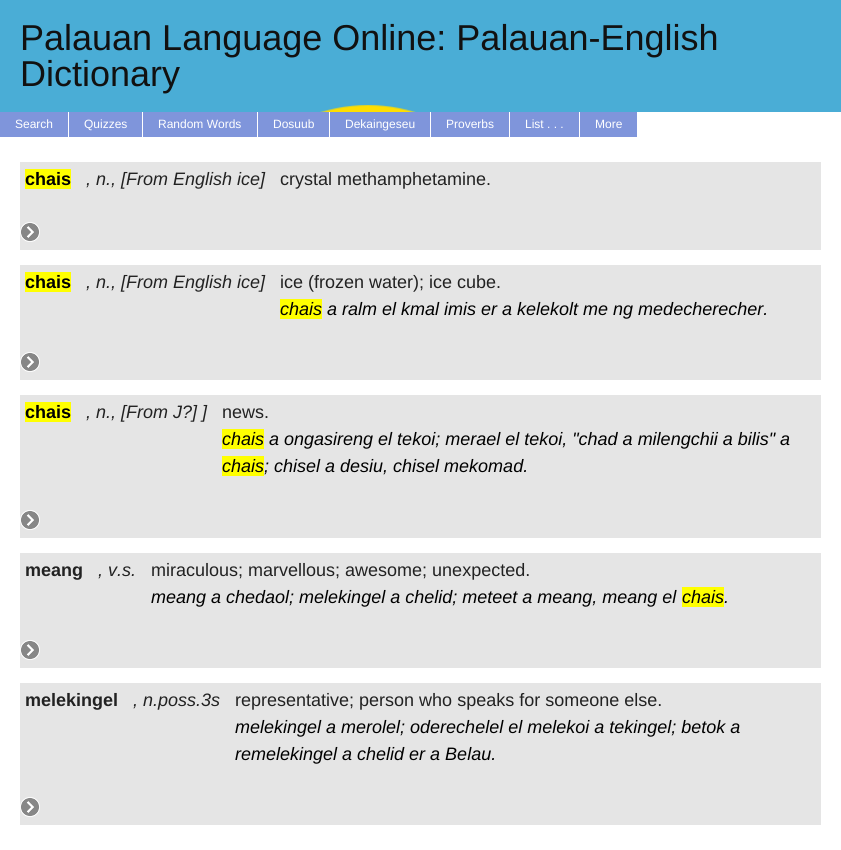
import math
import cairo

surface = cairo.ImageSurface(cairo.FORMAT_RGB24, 841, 850)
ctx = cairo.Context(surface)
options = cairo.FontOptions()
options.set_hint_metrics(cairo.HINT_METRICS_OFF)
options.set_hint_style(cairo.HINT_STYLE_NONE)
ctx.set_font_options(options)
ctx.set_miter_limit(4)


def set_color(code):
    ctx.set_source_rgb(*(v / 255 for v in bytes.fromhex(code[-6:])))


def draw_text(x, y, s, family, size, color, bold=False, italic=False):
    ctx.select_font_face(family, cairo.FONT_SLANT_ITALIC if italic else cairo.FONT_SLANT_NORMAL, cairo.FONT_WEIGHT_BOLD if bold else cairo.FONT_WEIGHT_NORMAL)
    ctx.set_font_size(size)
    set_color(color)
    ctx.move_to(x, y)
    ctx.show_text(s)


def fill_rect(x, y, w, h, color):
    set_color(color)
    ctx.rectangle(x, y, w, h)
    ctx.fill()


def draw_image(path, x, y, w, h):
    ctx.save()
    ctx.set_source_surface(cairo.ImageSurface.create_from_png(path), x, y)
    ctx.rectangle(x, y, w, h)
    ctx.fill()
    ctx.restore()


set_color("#ffffff")
ctx.paint()
draw_image("assets/img1.png", 0, 0, 841, 112)
draw_text(20, 50, "Palauan Language Online: Palauan-English", "Liberation Sans", 36, "#111111")
draw_text(20, 86, "Dictionary", "Liberation Sans", 36, "#111111")
fill_rect(0, 112, 68, 25, "#7f95db")
draw_text(15, 128, "Search", "Liberation Sans", 12, "#ffffff")
fill_rect(69, 112, 73, 25, "#7f95db")
draw_text(84, 128, "Quizzes", "Liberation Sans", 12, "#ffffff")
fill_rect(143, 112, 114, 25, "#7f95db")
draw_text(158, 128, "Random Words", "Liberation Sans", 12, "#ffffff")
fill_rect(258, 112, 71, 25, "#7f95db")
draw_text(273, 128, "Dosuub", "Liberation Sans", 12, "#ffffff")
fill_rect(330, 112, 100, 25, "#7f95db")
draw_text(345, 128, "Dekaingeseu", "Liberation Sans", 12, "#ffffff")
fill_rect(431, 112, 78, 25, "#7f95db")
draw_text(446, 128, "Proverbs", "Liberation Sans", 12, "#ffffff")
fill_rect(510, 112, 69, 25, "#7f95db")
draw_text(525, 128, "List . . .", "Liberation Sans", 12, "#ffffff")
fill_rect(580, 112, 57, 25, "#7f95db")
draw_text(595, 128, "More", "Liberation Sans", 12, "#ffffff")
fill_rect(20, 162, 801, 88, "#e5e5e5")
fill_rect(25, 169, 46, 20, "#ffff00")
draw_text(25, 185, "chais", "Liberation Sans", 18, "#000000", bold=True)
draw_text(86, 185, ", n., [From English ice]", "Liberation Sans", 18, "#222222", italic=True)
draw_text(280, 185, "crystal methamphetamine.", "Liberation Sans", 18, "#222222")
draw_image("assets/img2.png", 20, 222, 20, 20)
fill_rect(20, 265, 801, 115, "#e5e5e5")
fill_rect(25, 272, 46, 20, "#ffff00")
draw_text(25, 288, "chais", "Liberation Sans", 18, "#000000", bold=True)
draw_text(86, 288, ", n., [From English ice]", "Liberation Sans", 18, "#222222", italic=True)
draw_text(280, 288, "ice (frozen water); ice cube.", "Liberation Sans", 18, "#222222")
fill_rect(280, 299, 42, 20, "#ffff00")
draw_text(280, 315, "chais a ralm el kmal imis er a kelekolt me ng medecherecher.", "Liberation Sans", 18, "#000000", italic=True)
draw_image("assets/img2.png", 20, 352, 20, 20)
fill_rect(20, 395, 801, 143, "#e5e5e5")
fill_rect(25, 402, 46, 20, "#ffff00")
draw_text(25, 418, "chais", "Liberation Sans", 18, "#000000", bold=True)
draw_text(86, 418, ", n., [From J?] ]", "Liberation Sans", 18, "#222222", italic=True)
draw_text(222, 418, "news.", "Liberation Sans", 18, "#222222")
fill_rect(222, 429, 42, 20, "#ffff00")
draw_text(222, 445, "chais a ongasireng el tekoi; merael el tekoi, \"chad a milengchii a bilis\" a", "Liberation Sans", 18, "#000000", italic=True)
fill_rect(222, 456, 42, 20, "#ffff00")
draw_text(222, 472, "chais; chisel a desiu, chisel mekomad.", "Liberation Sans", 18, "#000000", italic=True)
draw_image("assets/img3.png", 20, 510, 20, 20)
fill_rect(20, 553, 801, 115, "#e5e5e5")
draw_text(25, 576, "meang", "Liberation Sans", 18, "#222222", bold=True)
draw_text(98, 576, ", v.s.", "Liberation Sans", 18, "#222222", italic=True)
draw_text(151, 576, "miraculous; marvellous; awesome; unexpected.", "Liberation Sans", 18, "#222222")
draw_text(151, 603, "meang a chedaol; melekingel a chelid; meteet a meang, meang el", "Liberation Sans", 18, "#000000", italic=True)
fill_rect(682, 587, 42, 20, "#ffff00")
draw_text(682, 603, "chais.", "Liberation Sans", 18, "#000000", italic=True)
draw_image("assets/img4.png", 20, 640, 20, 20)
fill_rect(20, 683, 801, 142, "#e5e5e5")
draw_text(25, 706, "melekingel", "Liberation Sans", 18, "#222222", bold=True)
draw_text(133, 706, ", n.poss.3s", "Liberation Sans", 18, "#222222", italic=True)
draw_text(235, 706, "representative; person who speaks for someone else.", "Liberation Sans", 18, "#222222")
draw_text(235, 733, "melekingel a merolel; oderechelel el melekoi a tekingel; betok a", "Liberation Sans", 18, "#000000", italic=True)
draw_text(235, 760, "remelekingel a chelid er a Belau.", "Liberation Sans", 18, "#000000", italic=True)
draw_image("assets/img2.png", 20, 797, 20, 20)
surface.write_to_png("output.png")
